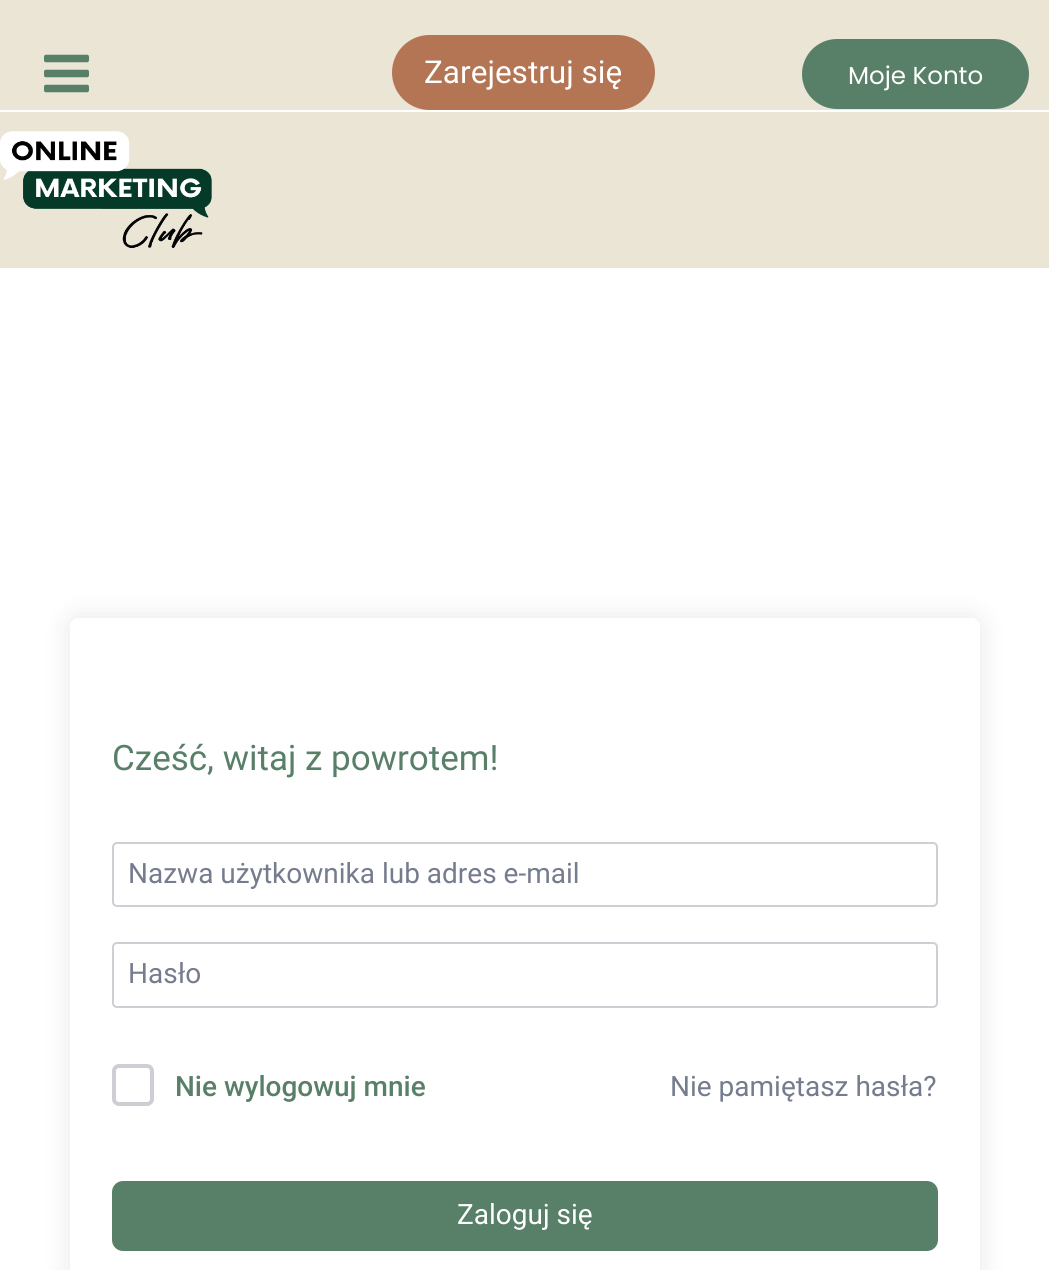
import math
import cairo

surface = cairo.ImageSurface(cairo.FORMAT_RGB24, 1049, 1270)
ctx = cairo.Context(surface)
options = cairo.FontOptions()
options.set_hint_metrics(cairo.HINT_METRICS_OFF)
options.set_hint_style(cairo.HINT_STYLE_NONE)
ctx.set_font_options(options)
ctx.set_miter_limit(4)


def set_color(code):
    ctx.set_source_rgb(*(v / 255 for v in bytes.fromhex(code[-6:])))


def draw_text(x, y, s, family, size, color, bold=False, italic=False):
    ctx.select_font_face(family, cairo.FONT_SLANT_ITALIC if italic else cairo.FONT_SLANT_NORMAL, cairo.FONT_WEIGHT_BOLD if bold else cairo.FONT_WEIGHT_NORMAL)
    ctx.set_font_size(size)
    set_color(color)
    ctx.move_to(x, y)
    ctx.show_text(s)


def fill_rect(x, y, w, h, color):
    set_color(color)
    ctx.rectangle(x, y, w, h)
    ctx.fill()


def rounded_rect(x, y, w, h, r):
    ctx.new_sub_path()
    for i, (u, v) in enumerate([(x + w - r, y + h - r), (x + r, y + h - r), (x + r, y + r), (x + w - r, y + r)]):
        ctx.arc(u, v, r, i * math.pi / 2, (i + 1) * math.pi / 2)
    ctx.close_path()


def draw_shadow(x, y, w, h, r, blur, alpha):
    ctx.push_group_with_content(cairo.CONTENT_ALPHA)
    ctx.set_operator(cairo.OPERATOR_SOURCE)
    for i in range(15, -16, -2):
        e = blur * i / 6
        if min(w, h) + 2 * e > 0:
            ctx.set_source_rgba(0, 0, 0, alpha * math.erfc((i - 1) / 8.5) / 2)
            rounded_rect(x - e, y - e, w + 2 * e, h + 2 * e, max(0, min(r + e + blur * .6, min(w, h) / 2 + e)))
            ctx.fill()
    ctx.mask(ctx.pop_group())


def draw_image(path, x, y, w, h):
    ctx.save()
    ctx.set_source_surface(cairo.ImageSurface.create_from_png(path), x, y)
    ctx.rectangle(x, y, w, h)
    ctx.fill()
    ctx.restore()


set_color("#ffffff")
ctx.paint()
fill_rect(0, 0, 1049, 268, "#ebe5d6")
fill_rect(0, 110, 1049, 2, "#ffffff")
draw_image("assets/img1.png", 44, 54, 45, 39)
set_color("#b47555")
rounded_rect(392, 35, 263, 75, 37.5)
ctx.fill()
draw_text(424, 83, "Zarejestruj się", "Roboto", 31.5, "#ffffff")
set_color("#588068")
rounded_rect(802, 39, 227, 70, 35)
ctx.fill()
draw_text(848, 84, "Moje Konto", "Poppins", 24.5, "#ffffff")
draw_image("assets/img2.png", 0, 131, 212, 118)
ctx.save()
ctx.set_fill_rule(cairo.FILL_RULE_EVEN_ODD)
ctx.new_path()
ctx.move_to(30, 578)
ctx.line_to(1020, 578)
ctx.line_to(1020, 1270)
ctx.line_to(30, 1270)
ctx.close_path()
ctx.move_to(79, 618)
ctx.line_to(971, 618)
ctx.curve_to(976, 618, 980, 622, 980, 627)
ctx.line_to(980, 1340)
ctx.curve_to(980, 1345, 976, 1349, 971, 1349)
ctx.line_to(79, 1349)
ctx.curve_to(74, 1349, 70, 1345, 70, 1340)
ctx.line_to(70, 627)
ctx.curve_to(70, 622, 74, 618, 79, 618)
ctx.close_path()
ctx.clip()
set_color("#000000")
draw_shadow(70, 618, 910, 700, 9, 13, 0.1)
ctx.restore()
draw_text(112, 770, "Cześć, witaj z powrotem!", "Roboto", 35, "#588068")
rounded_rect(113, 843, 824, 63, 4)
set_color("#cdcfd5")
ctx.stroke()
draw_text(128, 883, "Nazwa użytkownika lub adres e-mail", "Roboto", 28, "#757c8e")
rounded_rect(113, 943, 824, 64, 4)
set_color("#cdcfd5")
ctx.stroke()
draw_text(128, 983, "Hasło", "Roboto", 28, "#757c8e")
rounded_rect(114, 1066, 38, 38, 5)
set_color("#cdcfd5")
ctx.set_line_width(4)
ctx.stroke()
draw_text(175, 1096, "Nie wylogowuj mnie", "Roboto Medium", 28, "#588068")
draw_text(670, 1096, "Nie pamiętasz hasła?", "Roboto", 28, "#757c8e")
set_color("#588068")
rounded_rect(113, 1182, 824, 68, 10)
ctx.fill_preserve()
ctx.set_line_width(2)
ctx.stroke()
draw_text(457, 1224, "Zaloguj się", "Roboto", 28, "#ffffff")
surface.write_to_png("output.png")
